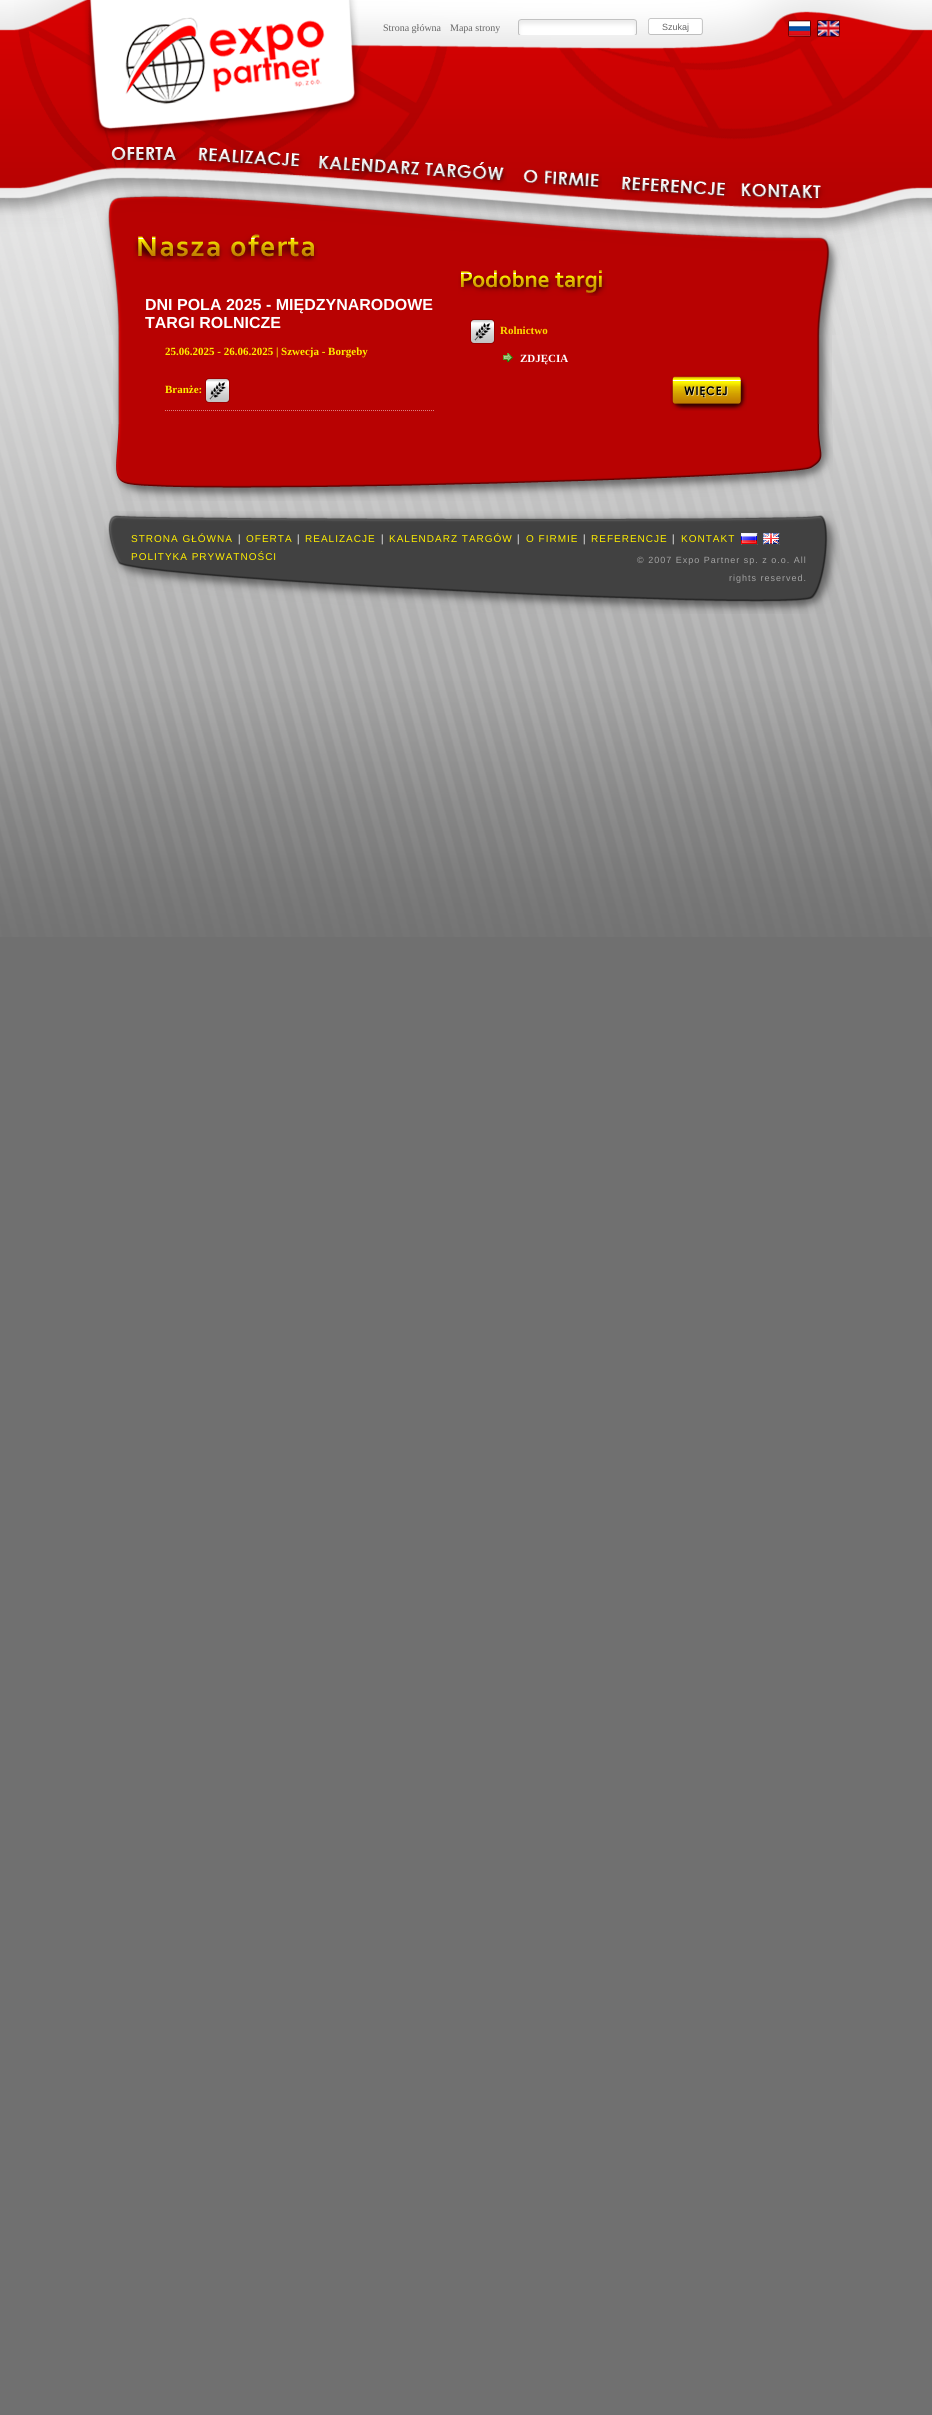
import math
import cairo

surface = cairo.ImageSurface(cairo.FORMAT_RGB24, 932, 2415)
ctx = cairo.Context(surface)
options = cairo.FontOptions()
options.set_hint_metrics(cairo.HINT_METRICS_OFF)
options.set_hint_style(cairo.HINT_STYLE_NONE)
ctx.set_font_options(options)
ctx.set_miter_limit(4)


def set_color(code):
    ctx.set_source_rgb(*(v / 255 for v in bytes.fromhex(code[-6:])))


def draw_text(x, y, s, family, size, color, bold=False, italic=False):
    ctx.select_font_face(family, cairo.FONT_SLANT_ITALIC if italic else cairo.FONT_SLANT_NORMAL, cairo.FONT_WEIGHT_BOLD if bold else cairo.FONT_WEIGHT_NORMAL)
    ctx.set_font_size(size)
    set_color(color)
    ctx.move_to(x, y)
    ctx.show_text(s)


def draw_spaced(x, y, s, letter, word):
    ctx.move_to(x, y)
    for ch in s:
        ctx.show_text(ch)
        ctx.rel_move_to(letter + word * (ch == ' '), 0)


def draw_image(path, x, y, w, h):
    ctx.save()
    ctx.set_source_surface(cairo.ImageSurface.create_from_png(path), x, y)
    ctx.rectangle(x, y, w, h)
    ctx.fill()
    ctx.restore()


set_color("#707070")
ctx.paint()
draw_image("assets/img1.png", 0, 0, 932, 937)
draw_image("assets/img2.png", 14, 0, 911, 49)
draw_text(383, 31, "Strona główna", "Liberation Serif", 10, "#666666")
draw_text(450, 31, "Mapa strony", "Liberation Serif", 10, "#666666")
draw_image("assets/img3.png", 518, 19, 119, 16)
draw_image("assets/img4.png", 648, 18, 55, 17)
draw_text(662, 30, "Szukaj", "Liberation Sans", 9, "#666666")
draw_image("assets/img5.png", 788, 20, 23, 17)
draw_image("assets/img6.png", 817, 20, 23, 17)
draw_image("assets/img7.png", 22, 49, 890, 86)
draw_image("assets/img8.png", 5, 135, 922, 83)
draw_image("assets/img9.png", 106, 145, 81, 26)
draw_image("assets/img10.png", 187, 146, 122, 31)
draw_image("assets/img11.png", 309, 155, 198, 31)
draw_image("assets/img12.png", 515, 169, 87, 28)
draw_image("assets/img13.png", 611, 175, 118, 30)
draw_image("assets/img14.png", 733, 182, 96, 27)
draw_image("assets/img15.png", 113, 335, 719, 89)
draw_image("assets/img16.png", 63, 218, 836, 117)
draw_image("assets/img17.png", 133, 234, 185, 28)
draw_text(145, 310, "DNI POLA 2025 - MIĘDZYNARODOWE", "Liberation Sans", 16, "#ffffff", bold=True)
draw_text(145, 328, "TARGI ROLNICZE", "Liberation Sans", 16, "#ffffff", bold=True)
draw_text(165, 355, "25.06.2025 - 26.06.2025 | Szwecja - Borgeby", "Liberation Serif", 11, "#ffee00", bold=True)
draw_image("assets/img18.png", 165, 410, 269, 1)
draw_text(165, 393, "Branże:", "Liberation Serif", 11, "#ffee00", bold=True)
draw_image("assets/img19.png", 205, 378, 25, 25)
draw_image("assets/img20.png", 458, 270, 149, 26)
draw_image("assets/img19.png", 470, 319, 25, 25)
draw_text(500, 334, "Rolnictwo", "Liberation Serif", 11, "#ffdd00", bold=True)
draw_image("assets/img21.png", 503, 353, 10, 10)
draw_text(520, 362, "ZDJĘCIA", "Liberation Serif", 11, "#ffffff", bold=True)
draw_image("assets/img22.png", 670, 375, 77, 36)
draw_image("assets/img23.png", 111, 424, 722, 77)
draw_image("assets/img24.png", 104, 511, 736, 103)
ctx.select_font_face("Liberation Sans")
ctx.set_font_size(10)
set_color("#ffee00")
draw_spaced(131, 542, "STRONA GŁÓWNA", 1, 0)
ctx.select_font_face("Liberation Serif", cairo.FONT_SLANT_NORMAL, cairo.FONT_WEIGHT_BOLD)
ctx.set_font_size(11)
set_color("#ffffff")
draw_spaced(238, 542, "|", 1, 0)
ctx.select_font_face("Liberation Sans")
ctx.set_font_size(10)
set_color("#ffee00")
draw_spaced(246, 542, "OFERTA", 1, 0)
ctx.select_font_face("Liberation Serif", cairo.FONT_SLANT_NORMAL, cairo.FONT_WEIGHT_BOLD)
ctx.set_font_size(11)
set_color("#ffffff")
draw_spaced(297, 542, "|", 1, 0)
ctx.select_font_face("Liberation Sans")
ctx.set_font_size(10)
set_color("#ffee00")
draw_spaced(305, 542, "REALIZACJE", 1, 0)
ctx.select_font_face("Liberation Serif", cairo.FONT_SLANT_NORMAL, cairo.FONT_WEIGHT_BOLD)
ctx.set_font_size(11)
set_color("#ffffff")
draw_spaced(381, 542, "|", 1, 0)
ctx.select_font_face("Liberation Sans")
ctx.set_font_size(10)
set_color("#ffee00")
draw_spaced(389, 542, "KALENDARZ TARGÓW", 1, 0)
ctx.select_font_face("Liberation Serif", cairo.FONT_SLANT_NORMAL, cairo.FONT_WEIGHT_BOLD)
ctx.set_font_size(11)
set_color("#ffffff")
draw_spaced(517, 542, "|", 1, 0)
ctx.select_font_face("Liberation Sans")
ctx.set_font_size(10)
set_color("#ffee00")
draw_spaced(526, 542, "O FIRMIE", 1, 0)
ctx.select_font_face("Liberation Serif", cairo.FONT_SLANT_NORMAL, cairo.FONT_WEIGHT_BOLD)
ctx.set_font_size(11)
set_color("#ffffff")
draw_spaced(583, 542, "|", 1, 0)
ctx.select_font_face("Liberation Sans")
ctx.set_font_size(10)
set_color("#ffee00")
draw_spaced(591, 542, "REFERENCJE", 1, 0)
ctx.select_font_face("Liberation Serif", cairo.FONT_SLANT_NORMAL, cairo.FONT_WEIGHT_BOLD)
ctx.set_font_size(11)
set_color("#ffffff")
draw_spaced(672, 542, "|", 1, 0)
ctx.select_font_face("Liberation Sans")
ctx.set_font_size(10)
set_color("#ffee00")
draw_spaced(681, 542, "KONTAKT", 1, 0)
draw_image("assets/img25.png", 741, 533, 17, 12)
draw_image("assets/img26.png", 763, 533, 17, 12)
draw_spaced(131, 560, "POLITYKA PRYWATNOŚCI", 1, 0)
ctx.set_font_size(9)
set_color("#a3a3a3")
draw_spaced(637, 563, "© 2007 Expo Partner sp. z o.o. All", 1, 0)
draw_spaced(729, 581, "rights reserved.", 1, 0)
surface.write_to_png("output.png")
